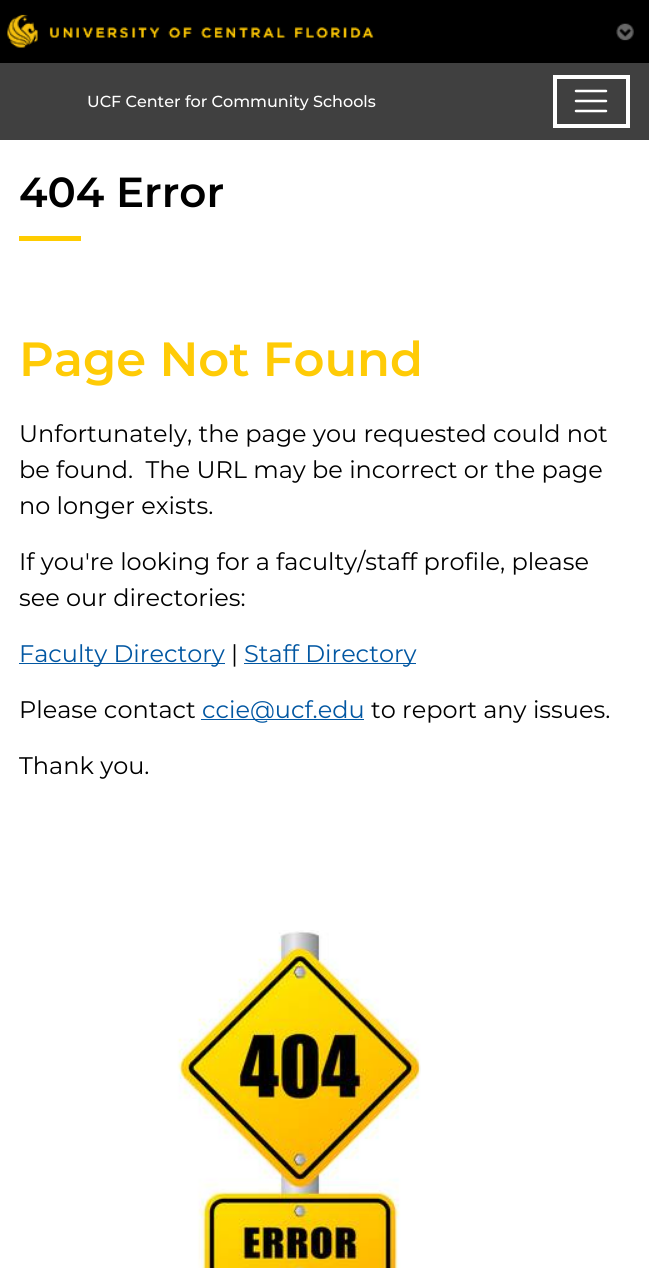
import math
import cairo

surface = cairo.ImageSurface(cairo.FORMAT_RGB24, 649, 1268)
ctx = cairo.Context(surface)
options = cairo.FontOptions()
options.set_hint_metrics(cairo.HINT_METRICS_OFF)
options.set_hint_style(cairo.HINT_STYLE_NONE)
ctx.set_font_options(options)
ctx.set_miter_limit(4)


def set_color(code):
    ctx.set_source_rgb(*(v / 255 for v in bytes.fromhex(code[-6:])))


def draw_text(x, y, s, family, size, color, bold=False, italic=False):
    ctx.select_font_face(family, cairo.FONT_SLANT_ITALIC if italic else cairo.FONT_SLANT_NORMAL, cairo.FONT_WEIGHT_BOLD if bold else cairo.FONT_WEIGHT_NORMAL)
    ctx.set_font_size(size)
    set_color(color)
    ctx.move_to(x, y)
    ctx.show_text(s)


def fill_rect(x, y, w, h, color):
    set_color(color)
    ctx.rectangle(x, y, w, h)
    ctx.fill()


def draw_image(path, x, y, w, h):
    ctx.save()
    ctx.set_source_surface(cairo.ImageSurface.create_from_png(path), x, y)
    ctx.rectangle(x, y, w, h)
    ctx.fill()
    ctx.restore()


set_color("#ffffff")
ctx.paint()
fill_rect(0, 0, 649, 63, "#000000")
draw_image("assets/img1.png", 7, 14, 367, 34)
draw_image("assets/img2.png", 616, 23, 18, 18)
fill_rect(0, 63, 649, 77, "#404040")
draw_text(87, 107, "UCF Center for Community Schools", "Montserrat Medium", 16, "#ffffff")
ctx.rectangle(555, 77, 73, 49)
ctx.set_line_width(4)
ctx.stroke()
ctx.new_path()
ctx.move_to(576, 91)
ctx.line_to(606, 91)
ctx.move_to(576, 101)
ctx.line_to(606, 101)
ctx.move_to(576, 111)
ctx.line_to(606, 111)
ctx.set_line_width(2.5)
ctx.set_line_cap(cairo.LINE_CAP_ROUND)
ctx.stroke()
draw_text(19, 207, "404 Error", "Montserrat SemiBold", 42, "#000000")
fill_rect(19, 236, 62, 5, "#ffcc00")
draw_text(19, 376, "Page Not Found", "Montserrat SemiBold", 48, "#ffcb06")
draw_text(19, 442, "Unfortunately, the page you requested could not", "Montserrat", 24, "#000000")
draw_text(19, 478, "be found.  The URL may be incorrect or the page", "Montserrat", 24, "#000000")
draw_text(19, 514, "no longer exists.", "Montserrat", 24, "#000000")
draw_text(19, 570, "If you're looking for a faculty/staff profile, please", "Montserrat", 24, "#000000")
draw_text(19, 606, "see our directories:", "Montserrat", 24, "#000000")
fill_rect(19, 663, 206, 1, "#0257a2")
draw_text(19, 662, "Faculty Directory", "Montserrat", 24, "#0257a2")
draw_text(231, 662, "|", "Montserrat", 24, "#000000")
fill_rect(244, 663, 172, 1, "#0257a2")
draw_text(244, 662, "Staff Directory", "Montserrat", 24, "#0257a2")
draw_text(19, 718, "Please contact", "Montserrat", 24, "#000000")
fill_rect(201, 719, 163, 1, "#0257a2")
draw_text(202, 718, "ccie@ucf.edu", "Montserrat", 24, "#0257a2")
draw_text(371, 718, "to report any issues.", "Montserrat", 24, "#000000")
draw_text(19, 774, "Thank you.", "Montserrat", 24, "#000000")
draw_image("assets/img3.png", 177, 930, 244, 338)
surface.write_to_png("output.png")
